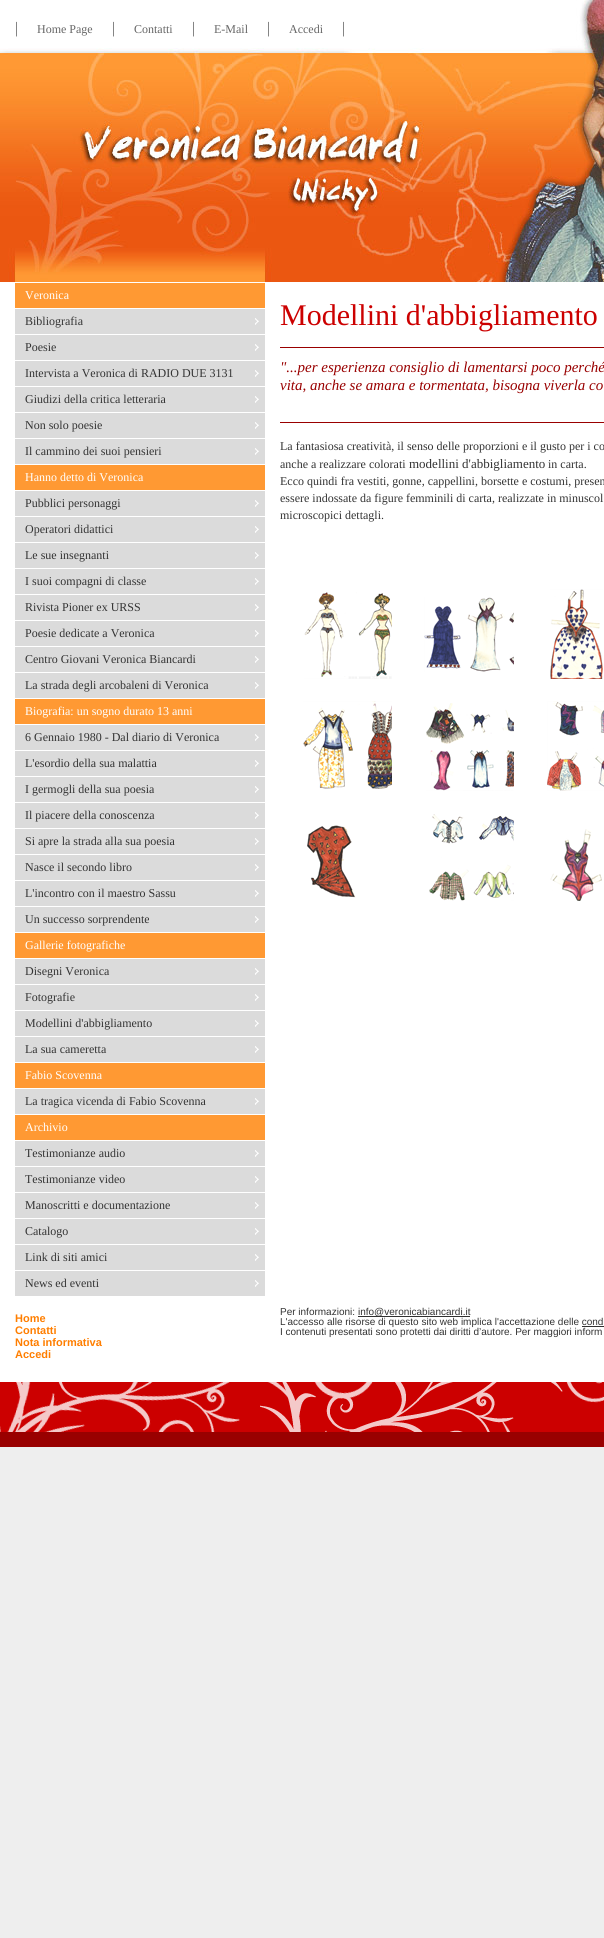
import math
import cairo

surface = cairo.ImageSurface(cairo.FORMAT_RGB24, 604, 1938)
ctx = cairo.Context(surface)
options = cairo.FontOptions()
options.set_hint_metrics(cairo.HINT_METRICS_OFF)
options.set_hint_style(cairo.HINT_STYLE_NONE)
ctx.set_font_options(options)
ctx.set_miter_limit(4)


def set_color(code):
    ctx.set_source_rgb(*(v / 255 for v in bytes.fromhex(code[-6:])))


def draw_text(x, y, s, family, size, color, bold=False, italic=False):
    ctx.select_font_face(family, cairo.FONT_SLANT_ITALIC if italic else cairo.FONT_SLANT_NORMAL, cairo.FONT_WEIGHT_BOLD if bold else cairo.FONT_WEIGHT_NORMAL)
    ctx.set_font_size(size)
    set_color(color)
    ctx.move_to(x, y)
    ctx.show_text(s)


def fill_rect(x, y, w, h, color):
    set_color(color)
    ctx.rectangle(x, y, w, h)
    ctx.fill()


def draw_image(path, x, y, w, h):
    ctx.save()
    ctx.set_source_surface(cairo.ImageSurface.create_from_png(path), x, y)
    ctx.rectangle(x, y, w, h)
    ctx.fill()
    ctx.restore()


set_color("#eeeeee")
ctx.paint()
fill_rect(0, 282, 604, 1025, "#ffffff")
draw_image("assets/img1.png", 0, 0, 604, 282)
draw_text(15, 33, "|", "Liberation Serif", 16, "#666666")
draw_text(37, 33, "Home Page", "Liberation Serif", 12, "#666666")
draw_text(112, 33, "|", "Liberation Serif", 16, "#666666")
draw_text(134, 33, "Contatti", "Liberation Serif", 12, "#666666")
draw_text(192, 33, "|", "Liberation Serif", 16, "#666666")
draw_text(214, 33, "E-Mail", "Liberation Serif", 12, "#666666")
draw_text(267, 33, "|", "Liberation Serif", 16, "#666666")
draw_text(289, 33, "Accedi", "Liberation Serif", 12, "#666666")
draw_text(342, 33, "|", "Liberation Serif", 16, "#666666")
fill_rect(15, 283, 250, 25, "#ff9933")
draw_text(25, 299, "Veronica", "Liberation Serif", 12, "#ffffff")
fill_rect(15, 309, 250, 155, "#dbdbdb")
draw_image("assets/img2.png", 255, 318, 4, 7)
fill_rect(15, 334, 250, 1, "#ffffff")
draw_text(25, 325, "Bibliografia", "Liberation Serif", 12, "#333333")
draw_image("assets/img2.png", 255, 344, 4, 7)
fill_rect(15, 360, 250, 1, "#ffffff")
draw_text(25, 351, "Poesie", "Liberation Serif", 12, "#333333")
draw_image("assets/img2.png", 255, 370, 4, 7)
fill_rect(15, 386, 250, 1, "#ffffff")
draw_text(25, 377, "Intervista a Veronica di RADIO DUE 3131", "Liberation Serif", 12, "#333333")
draw_image("assets/img2.png", 255, 396, 4, 7)
fill_rect(15, 412, 250, 1, "#ffffff")
draw_text(25, 403, "Giudizi della critica letteraria", "Liberation Serif", 12, "#333333")
draw_image("assets/img2.png", 255, 422, 4, 7)
fill_rect(15, 438, 250, 1, "#ffffff")
draw_text(25, 429, "Non solo poesie", "Liberation Serif", 12, "#333333")
draw_image("assets/img2.png", 255, 448, 4, 7)
draw_text(25, 455, "Il cammino dei suoi pensieri", "Liberation Serif", 12, "#333333")
fill_rect(15, 465, 250, 25, "#ff9933")
draw_text(25, 481, "Hanno detto di Veronica", "Liberation Serif", 12, "#ffffff")
fill_rect(15, 491, 250, 207, "#dbdbdb")
draw_image("assets/img2.png", 255, 500, 4, 7)
fill_rect(15, 516, 250, 1, "#ffffff")
draw_text(25, 507, "Pubblici personaggi", "Liberation Serif", 12, "#333333")
draw_image("assets/img2.png", 255, 526, 4, 7)
fill_rect(15, 542, 250, 1, "#ffffff")
draw_text(25, 533, "Operatori didattici", "Liberation Serif", 12, "#333333")
draw_image("assets/img2.png", 255, 552, 4, 7)
fill_rect(15, 568, 250, 1, "#ffffff")
draw_text(25, 559, "Le sue insegnanti", "Liberation Serif", 12, "#333333")
draw_image("assets/img2.png", 255, 578, 4, 7)
fill_rect(15, 594, 250, 1, "#ffffff")
draw_text(25, 585, "I suoi compagni di classe", "Liberation Serif", 12, "#333333")
draw_image("assets/img2.png", 255, 604, 4, 7)
fill_rect(15, 620, 250, 1, "#ffffff")
draw_text(25, 611, "Rivista Pioner ex URSS", "Liberation Serif", 12, "#333333")
draw_image("assets/img2.png", 255, 630, 4, 7)
fill_rect(15, 646, 250, 1, "#ffffff")
draw_text(25, 637, "Poesie dedicate a Veronica", "Liberation Serif", 12, "#333333")
draw_image("assets/img2.png", 255, 656, 4, 7)
fill_rect(15, 672, 250, 1, "#ffffff")
draw_text(25, 663, "Centro Giovani Veronica Biancardi", "Liberation Serif", 12, "#333333")
draw_image("assets/img2.png", 255, 682, 4, 7)
draw_text(25, 689, "La strada degli arcobaleni di Veronica", "Liberation Serif", 12, "#333333")
fill_rect(15, 699, 250, 25, "#ff9933")
draw_text(25, 715, "Biografia: un sogno durato 13 anni", "Liberation Serif", 12, "#ffffff")
fill_rect(15, 725, 250, 207, "#dbdbdb")
draw_image("assets/img2.png", 255, 734, 4, 7)
fill_rect(15, 750, 250, 1, "#ffffff")
draw_text(25, 741, "6 Gennaio 1980 - Dal diario di Veronica", "Liberation Serif", 12, "#333333")
draw_image("assets/img2.png", 255, 760, 4, 7)
fill_rect(15, 776, 250, 1, "#ffffff")
draw_text(25, 767, "L'esordio della sua malattia", "Liberation Serif", 12, "#333333")
draw_image("assets/img2.png", 255, 786, 4, 7)
fill_rect(15, 802, 250, 1, "#ffffff")
draw_text(25, 793, "I germogli della sua poesia", "Liberation Serif", 12, "#333333")
draw_image("assets/img2.png", 255, 812, 4, 7)
fill_rect(15, 828, 250, 1, "#ffffff")
draw_text(25, 819, "Il piacere della conoscenza", "Liberation Serif", 12, "#333333")
draw_image("assets/img2.png", 255, 838, 4, 7)
fill_rect(15, 854, 250, 1, "#ffffff")
draw_text(25, 845, "Si apre la strada alla sua poesia", "Liberation Serif", 12, "#333333")
draw_image("assets/img2.png", 255, 864, 4, 7)
fill_rect(15, 880, 250, 1, "#ffffff")
draw_text(25, 871, "Nasce il secondo libro", "Liberation Serif", 12, "#333333")
draw_image("assets/img2.png", 255, 890, 4, 7)
fill_rect(15, 906, 250, 1, "#ffffff")
draw_text(25, 897, "L'incontro con il maestro Sassu", "Liberation Serif", 12, "#333333")
draw_image("assets/img2.png", 255, 916, 4, 7)
draw_text(25, 923, "Un successo sorprendente", "Liberation Serif", 12, "#333333")
fill_rect(15, 933, 250, 25, "#ff9933")
draw_text(25, 949, "Gallerie fotografiche", "Liberation Serif", 12, "#ffffff")
fill_rect(15, 959, 250, 103, "#dbdbdb")
draw_image("assets/img2.png", 255, 968, 4, 7)
fill_rect(15, 984, 250, 1, "#ffffff")
draw_text(25, 975, "Disegni Veronica", "Liberation Serif", 12, "#333333")
draw_image("assets/img2.png", 255, 994, 4, 7)
fill_rect(15, 1010, 250, 1, "#ffffff")
draw_text(25, 1001, "Fotografie", "Liberation Serif", 12, "#333333")
draw_image("assets/img2.png", 255, 1020, 4, 7)
fill_rect(15, 1036, 250, 1, "#ffffff")
draw_text(25, 1027, "Modellini d'abbigliamento", "Liberation Serif", 12, "#333333")
draw_image("assets/img2.png", 255, 1046, 4, 7)
draw_text(25, 1053, "La sua cameretta", "Liberation Serif", 12, "#333333")
fill_rect(15, 1063, 250, 25, "#ff9933")
draw_text(25, 1079, "Fabio Scovenna", "Liberation Serif", 12, "#ffffff")
fill_rect(15, 1089, 250, 25, "#dbdbdb")
draw_image("assets/img2.png", 255, 1098, 4, 7)
draw_text(25, 1105, "La tragica vicenda di Fabio Scovenna", "Liberation Serif", 12, "#333333")
fill_rect(15, 1115, 250, 25, "#ff9933")
draw_text(25, 1131, "Archivio", "Liberation Serif", 12, "#ffffff")
fill_rect(15, 1141, 250, 155, "#dbdbdb")
draw_image("assets/img2.png", 255, 1150, 4, 7)
fill_rect(15, 1166, 250, 1, "#ffffff")
draw_text(25, 1157, "Testimonianze audio", "Liberation Serif", 12, "#333333")
draw_image("assets/img2.png", 255, 1176, 4, 7)
fill_rect(15, 1192, 250, 1, "#ffffff")
draw_text(25, 1183, "Testimonianze video", "Liberation Serif", 12, "#333333")
draw_image("assets/img2.png", 255, 1202, 4, 7)
fill_rect(15, 1218, 250, 1, "#ffffff")
draw_text(25, 1209, "Manoscritti e documentazione", "Liberation Serif", 12, "#333333")
draw_image("assets/img2.png", 255, 1228, 4, 7)
fill_rect(15, 1244, 250, 1, "#ffffff")
draw_text(25, 1235, "Catalogo", "Liberation Serif", 12, "#333333")
draw_image("assets/img2.png", 255, 1254, 4, 7)
fill_rect(15, 1270, 250, 1, "#ffffff")
draw_text(25, 1261, "Link di siti amici", "Liberation Serif", 12, "#333333")
draw_image("assets/img2.png", 255, 1280, 4, 7)
draw_text(25, 1287, "News ed eventi", "Liberation Serif", 12, "#333333")
draw_text(280, 325, "Modellini d'abbigliamento", "Liberation Serif", 30, "#cc0000")
fill_rect(280, 347, 324, 1, "#990000")
fill_rect(280, 422, 324, 1, "#990000")
draw_text(280, 372, "\"...per esperienza consiglio di lamentarsi poco perché", "Liberation Serif", 15, "#990000", italic=True)
draw_text(280, 390, "vita, anche se amara e tormentata, bisogna viverla co", "Liberation Serif", 15, "#990000", italic=True)
draw_text(280, 450, "La fantasiosa creatività, il senso delle proporzioni e il gusto per i co", "Liberation Serif", 12, "#333333")
draw_text(280, 468, "anche a realizzare colorati", "Liberation Serif", 12, "#333333")
draw_text(409, 468, "modellini d'abbigliamento", "Liberation Serif", 13, "#333333")
draw_text(548, 468, "in carta.", "Liberation Serif", 12, "#333333")
draw_text(280, 485, "Ecco quindi fra vestiti, gonne, cappellini, borsette e costumi, presen", "Liberation Serif", 12, "#333333")
draw_text(280, 502, "essere indossate da figure femminili di carta, realizzate in minuscol", "Liberation Serif", 12, "#333333")
draw_text(280, 519, "microscopici dettagli.", "Liberation Serif", 12, "#333333")
draw_image("assets/img3.png", 304, 592, 88, 87)
draw_image("assets/img4.png", 424, 597, 90, 75)
draw_image("assets/img5.png", 550, 589, 53, 90)
draw_image("assets/img6.png", 303, 701, 89, 88)
draw_image("assets/img7.png", 426, 703, 88, 88)
draw_image("assets/img8.png", 547, 701, 57, 90)
draw_image("assets/img9.png", 307, 825, 49, 73)
draw_image("assets/img10.png", 429, 814, 85, 87)
draw_image("assets/img11.png", 550, 829, 52, 72)
fill_rect(0, 1432, 604, 15, "#990000")
draw_image("assets/img12.png", 0, 1307, 604, 125)
draw_text(15, 1322, "Home", "Liberation Sans", 11, "#ff7e00", bold=True)
draw_text(15, 1334, "Contatti", "Liberation Sans", 11, "#ff7e00", bold=True)
draw_text(15, 1346, "Nota informativa", "Liberation Sans", 11, "#ff7e00", bold=True)
draw_text(15, 1358, "Accedi", "Liberation Sans", 11, "#ff7e00", bold=True)
draw_text(280, 1315, "Per informazioni:", "Liberation Sans", 10, "#333333")
fill_rect(358, 1316, 112, 1, "#303030")
draw_text(358, 1315, "info@veronicabiancardi.it", "Liberation Sans", 10, "#333333")
draw_text(280, 1325, "L'accesso alle risorse di questo sito web implica l'accettazione delle cond", "Liberation Sans", 10, "#333333")
fill_rect(582, 1326, 22, 1, "#303030")
draw_text(280, 1335, "I contenuti presentati sono protetti dai diritti d’autore. Per maggiori inform", "Liberation Sans", 10, "#333333")
surface.write_to_png("output.png")
